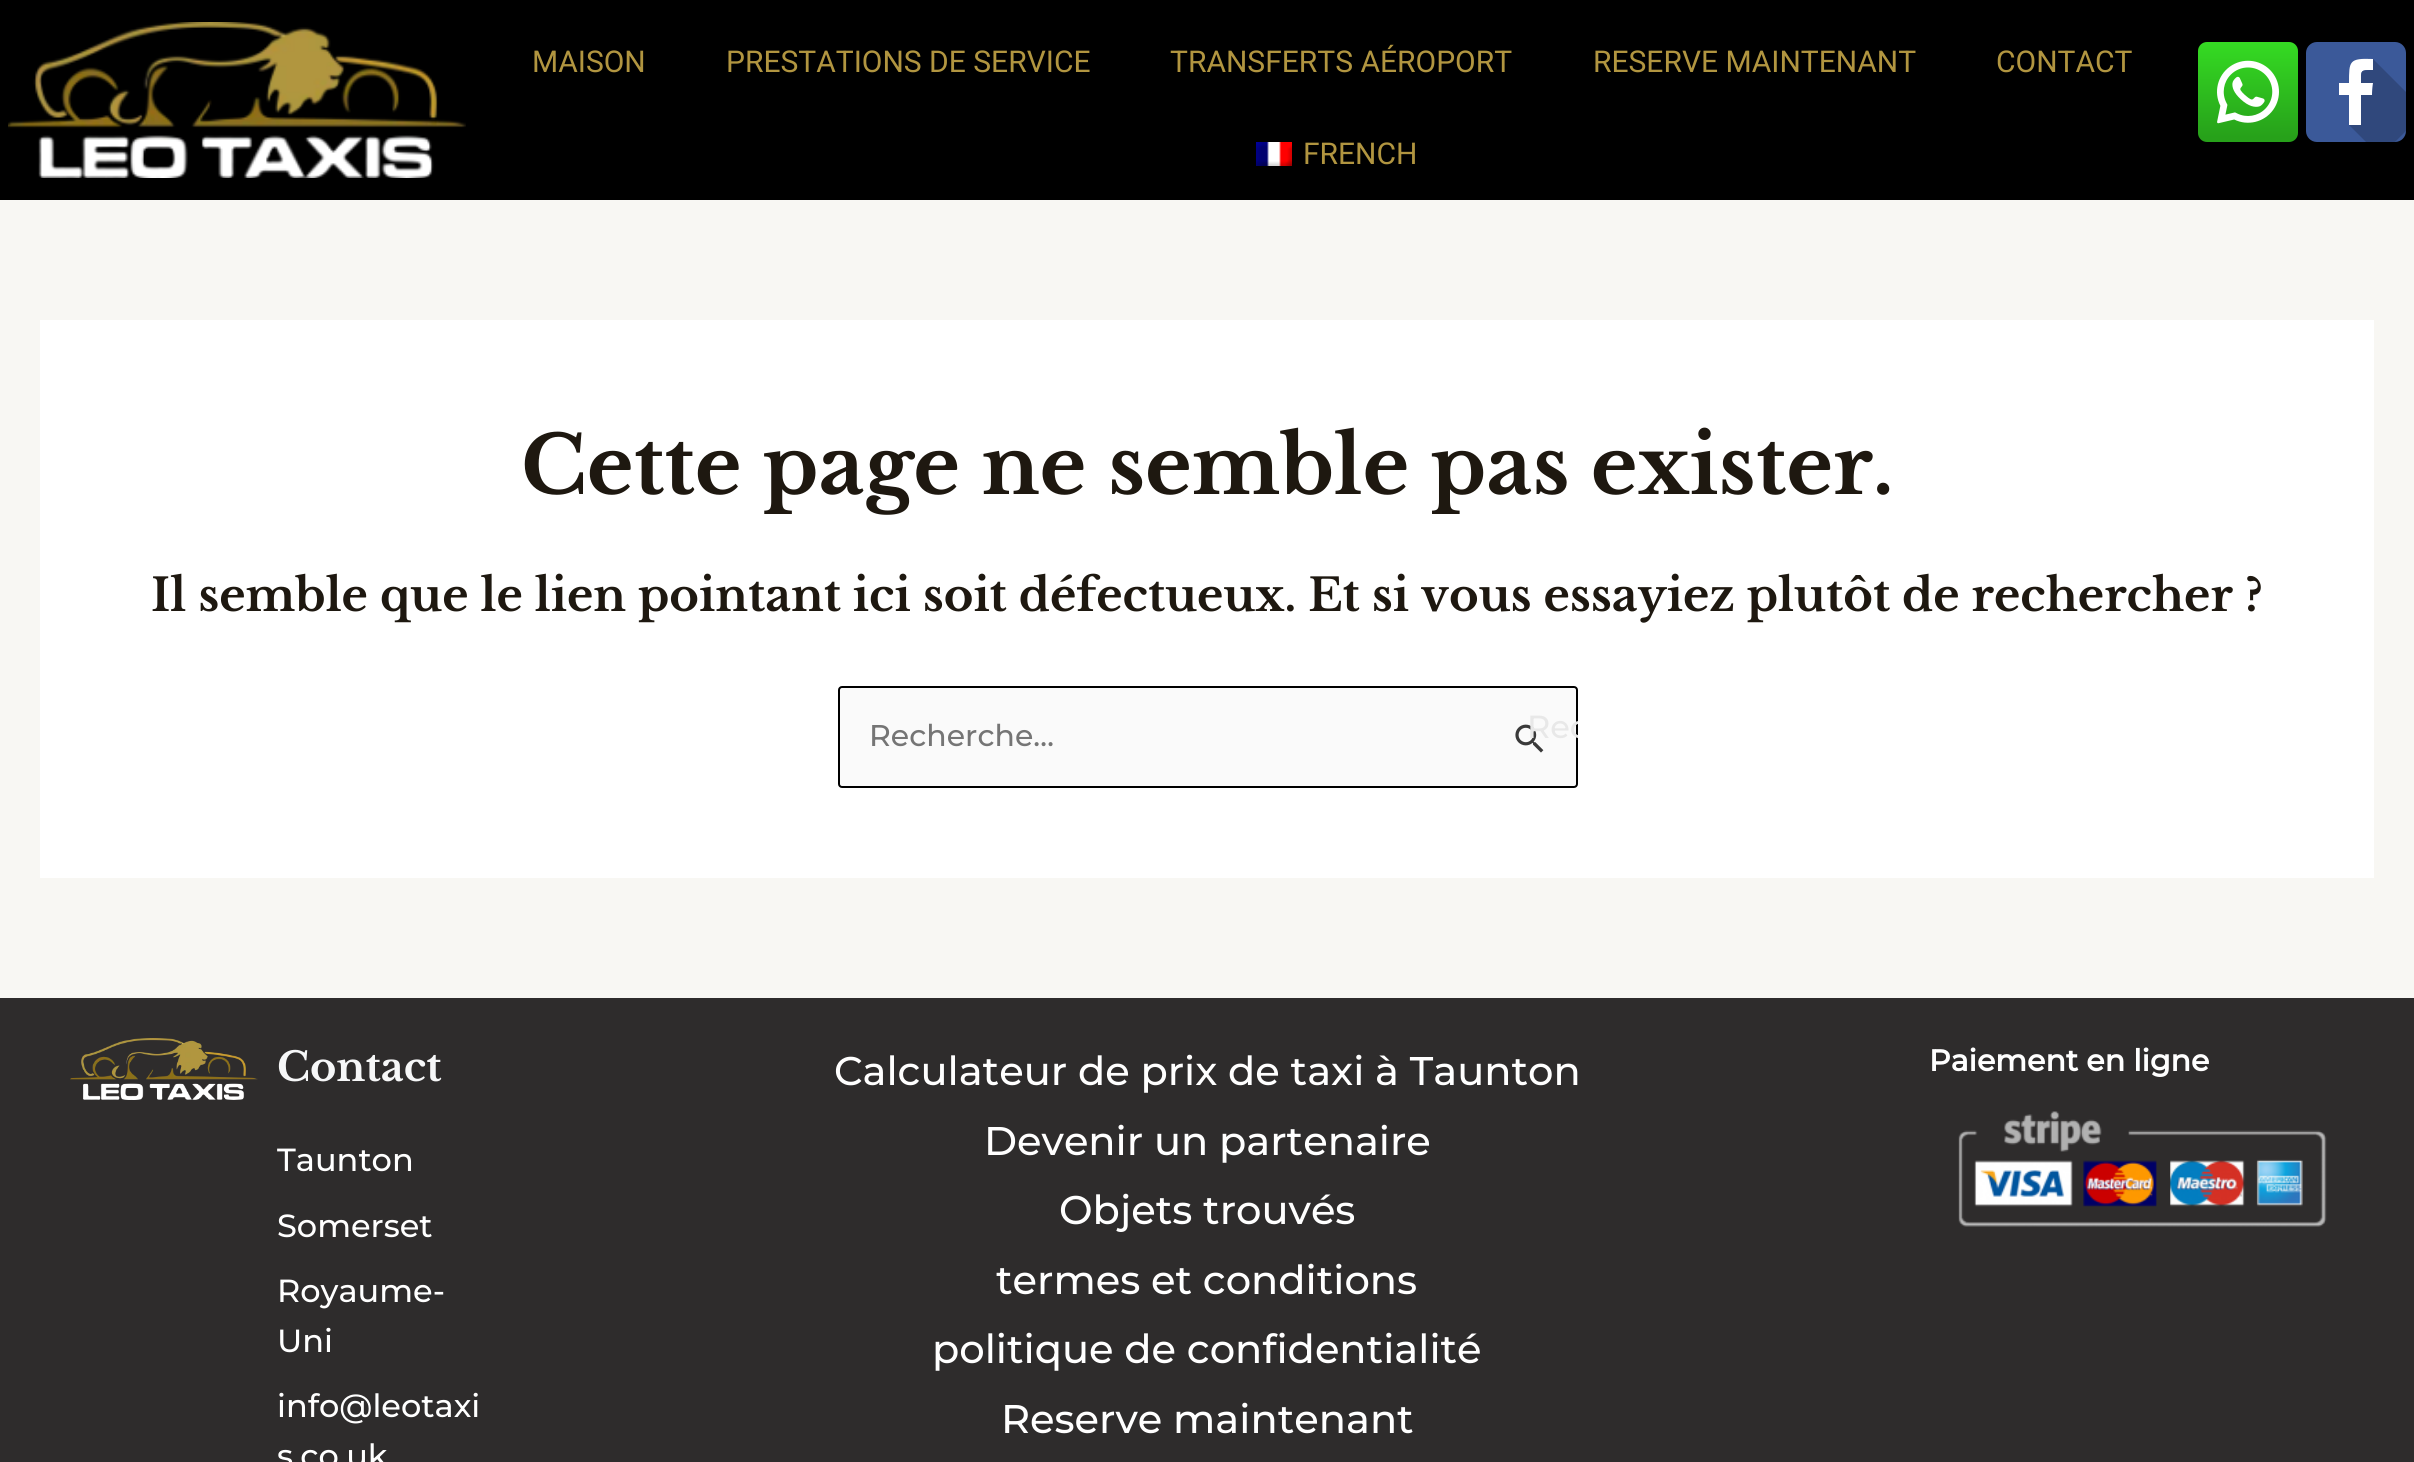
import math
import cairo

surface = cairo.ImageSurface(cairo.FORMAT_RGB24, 2414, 1462)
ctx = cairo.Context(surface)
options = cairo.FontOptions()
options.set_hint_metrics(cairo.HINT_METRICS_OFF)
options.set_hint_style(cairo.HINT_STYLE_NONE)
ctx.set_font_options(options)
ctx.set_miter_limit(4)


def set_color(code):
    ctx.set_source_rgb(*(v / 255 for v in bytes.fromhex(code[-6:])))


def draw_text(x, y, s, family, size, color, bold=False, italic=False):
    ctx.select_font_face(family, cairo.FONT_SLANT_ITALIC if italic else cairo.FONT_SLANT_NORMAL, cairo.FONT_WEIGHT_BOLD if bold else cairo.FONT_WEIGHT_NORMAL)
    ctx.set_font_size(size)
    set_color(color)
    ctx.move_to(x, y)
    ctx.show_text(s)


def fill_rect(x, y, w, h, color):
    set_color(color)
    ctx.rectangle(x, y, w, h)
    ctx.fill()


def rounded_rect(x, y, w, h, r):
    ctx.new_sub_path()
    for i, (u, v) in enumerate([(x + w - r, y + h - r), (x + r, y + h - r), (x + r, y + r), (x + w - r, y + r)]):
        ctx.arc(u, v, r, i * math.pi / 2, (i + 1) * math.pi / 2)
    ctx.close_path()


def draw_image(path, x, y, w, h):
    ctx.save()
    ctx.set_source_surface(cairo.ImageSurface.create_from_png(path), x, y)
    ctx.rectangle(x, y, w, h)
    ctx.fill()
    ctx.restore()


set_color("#f8f7f3")
ctx.paint()
fill_rect(0, 0, 2414, 200, "#000000")
draw_image("assets/img1.png", 8, 22, 458, 156)
draw_text(532, 72, "MAISON", "Roboto", 30, "#b19540")
draw_text(726, 72, "PRESTATIONS DE SERVICE", "Roboto", 30, "#b19540")
draw_text(1170, 72, "TRANSFERTS AÉROPORT", "Roboto", 30, "#b19540")
draw_text(1593, 72, "RESERVE MAINTENANT", "Roboto", 30, "#b19540")
draw_text(1996, 72, "CONTACT", "Roboto", 30, "#b19540")
draw_image("assets/img2.png", 1256, 142, 36, 24)
draw_text(1303, 164, "FRENCH", "Roboto", 30, "#b19540")
draw_image("assets/img3.png", 2198, 42, 100, 100)
set_color("#3b5999")
rounded_rect(2306, 42, 100, 100, 11)
ctx.fill()
set_color("#ffffff")
ctx.set_fill_rule(cairo.FILL_RULE_EVEN_ODD)
ctx.new_path()
ctx.move_to(2339, 83)
ctx.line_to(2349, 83)
ctx.curve_to(2349, 61, 2349, 58, 2373, 59)
ctx.line_to(2373, 70)
ctx.curve_to(2360, 70, 2361, 70, 2361, 83)
ctx.line_to(2373, 83)
ctx.line_to(2372, 95)
ctx.line_to(2361, 95)
ctx.line_to(2361, 125)
ctx.line_to(2349, 125)
ctx.line_to(2349, 95)
ctx.line_to(2339, 95)
ctx.close_path()
ctx.fill()
set_color("#30487c")
ctx.new_path()
ctx.move_to(2406, 92)
ctx.line_to(2373, 59)
ctx.line_to(2373, 70)
ctx.curve_to(2360, 70, 2361, 70, 2361, 83)
ctx.line_to(2373, 83)
ctx.line_to(2372, 95)
ctx.line_to(2361, 95)
ctx.line_to(2361, 125)
ctx.line_to(2349, 125)
ctx.line_to(2366, 142)
ctx.line_to(2395, 142)
ctx.line_to(2406, 131)
ctx.close_path()
ctx.fill()
fill_rect(40, 320, 2334, 558, "#ffffff")
draw_text(521, 494, "Cette page ne semble pas exister.", "Libre Baskerville", 80, "#1e1810", bold=True)
draw_text(151, 611, "Il semble que le lien pointant ici soit défectueux. Et si vous essayiez plutôt de rechercher ?", "Libre Baskerville", 45, "#1e1810", bold=True)
set_color("#fafafa")
rounded_rect(839, 687, 738, 100, 3)
ctx.fill_preserve()
set_color("#000000")
ctx.stroke()
draw_text(869, 746, "Recherche…", "Montserrat Thin", 30, "#757575")
draw_image("assets/img4.png", 1515, 724, 29, 29)
ctx.save()
ctx.set_fill_rule(cairo.FILL_RULE_WINDING)
rounded_rect(1488, 686, 90, 84, 4)
ctx.clip()
draw_text(1527, 738, "Rec", "Montserrat Thin", 32, "#e8e8e8")
ctx.restore()
fill_rect(0, 998, 2414, 464, "#2e2c2c")
draw_image("assets/img5.png", 70, 1038, 188, 62)
draw_text(277, 1081, "Contact", "Libre Baskerville", 40, "#f6f7f8", bold=True)
draw_text(277, 1171, "Taunton", "Montserrat Thin", 32, "#ffffff")
draw_text(277, 1237, "Somerset", "Montserrat Thin", 32, "#ffffff")
draw_text(277, 1302, "Royaume-", "Montserrat Thin", 32, "#ffffff")
draw_text(277, 1352, "Uni", "Montserrat Thin", 32, "#ffffff")
draw_text(277, 1417, "info@leotaxi", "Montserrat Thin", 32, "#ffffff")
draw_text(277, 1467, "s.co.uk", "Montserrat Thin", 32, "#ffffff")
draw_text(834, 1085, "Calculateur de prix de taxi à Taunton", "Montserrat Thin", 40, "#ffffff")
draw_text(984, 1155, "Devenir un partenaire", "Montserrat Thin", 40, "#ffffff")
draw_text(1059, 1224, "Objets trouvés", "Montserrat Thin", 40, "#ffffff")
draw_text(996, 1294, "termes et conditions", "Montserrat Thin", 40, "#ffffff")
draw_text(932, 1363, "politique de confidentialité", "Montserrat Thin", 40, "#ffffff")
draw_text(1001, 1433, "Reserve maintenant", "Montserrat Thin", 40, "#ffffff")
draw_text(1929, 1071, "Paiement en ligne", "Montserrat", 30, "#ffffff", bold=True)
draw_image("assets/img6.png", 1958, 1111, 369, 116)
surface.write_to_png("output.png")
